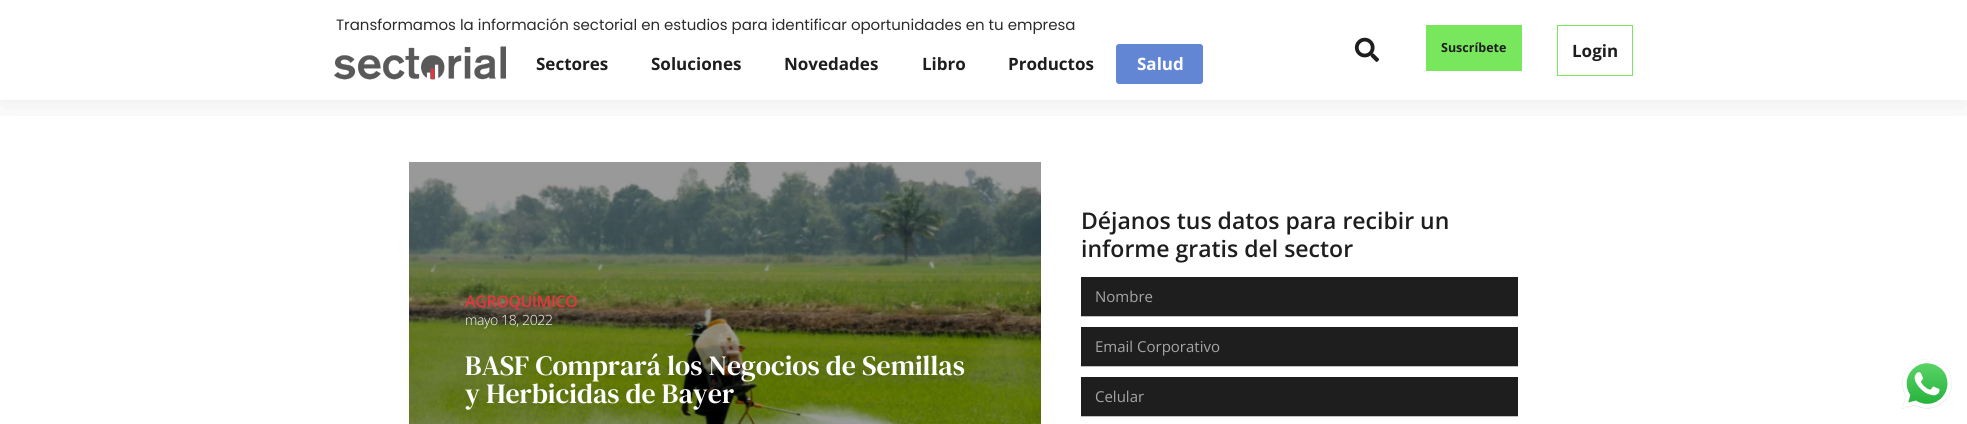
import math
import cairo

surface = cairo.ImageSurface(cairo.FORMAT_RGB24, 1967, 424)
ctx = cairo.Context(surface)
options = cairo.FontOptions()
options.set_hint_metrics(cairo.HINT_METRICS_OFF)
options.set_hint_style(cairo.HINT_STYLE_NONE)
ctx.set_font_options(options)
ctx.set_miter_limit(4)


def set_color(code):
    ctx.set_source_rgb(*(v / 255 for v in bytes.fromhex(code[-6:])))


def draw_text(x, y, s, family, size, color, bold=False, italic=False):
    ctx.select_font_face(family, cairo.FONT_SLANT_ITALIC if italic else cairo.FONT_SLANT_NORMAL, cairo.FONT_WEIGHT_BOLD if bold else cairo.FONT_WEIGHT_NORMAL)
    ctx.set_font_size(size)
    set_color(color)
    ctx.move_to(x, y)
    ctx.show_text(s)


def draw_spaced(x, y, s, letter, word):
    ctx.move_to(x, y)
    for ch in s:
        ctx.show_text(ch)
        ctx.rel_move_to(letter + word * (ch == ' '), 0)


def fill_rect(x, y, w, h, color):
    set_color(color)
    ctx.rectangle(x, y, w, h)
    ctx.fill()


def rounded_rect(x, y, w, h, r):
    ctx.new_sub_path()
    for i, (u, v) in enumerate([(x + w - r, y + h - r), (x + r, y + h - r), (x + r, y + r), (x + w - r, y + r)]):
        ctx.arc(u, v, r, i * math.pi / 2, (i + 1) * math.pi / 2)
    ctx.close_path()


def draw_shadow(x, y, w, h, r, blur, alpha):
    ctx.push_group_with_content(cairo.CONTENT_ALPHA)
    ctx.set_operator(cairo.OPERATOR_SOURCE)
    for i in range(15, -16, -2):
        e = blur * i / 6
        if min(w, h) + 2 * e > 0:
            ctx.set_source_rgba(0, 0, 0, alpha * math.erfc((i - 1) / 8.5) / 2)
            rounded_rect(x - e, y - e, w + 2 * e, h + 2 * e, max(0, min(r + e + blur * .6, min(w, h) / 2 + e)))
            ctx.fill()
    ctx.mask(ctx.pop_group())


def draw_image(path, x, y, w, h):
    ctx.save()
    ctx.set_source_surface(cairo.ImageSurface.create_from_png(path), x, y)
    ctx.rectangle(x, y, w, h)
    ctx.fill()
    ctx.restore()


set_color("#ffffff")
ctx.paint()
ctx.save()
ctx.rectangle(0, 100, 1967, 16)
ctx.clip()
set_color("#000000")
draw_shadow(0, 0, 1967, 100, 0, 19, 0.1)
ctx.restore()
draw_text(336, 30, "Transformamos la información sectorial en estudios para identificar oportunidades en tu empresa", "Poppins", 15, "#2b2b2b")
draw_image("assets/img1.png", 334, 46, 172, 34)
draw_text(536, 70, "Sectores", "Open Sans", 17, "#1e1e1e", bold=True)
draw_text(651, 70, "Soluciones", "Open Sans", 17, "#1e1e1e", bold=True)
draw_text(784, 70, "Novedades", "Open Sans", 17, "#1e1e1e", bold=True)
draw_text(922, 70, "Libro", "Open Sans", 17, "#1e1e1e", bold=True)
draw_text(1008, 70, "Productos", "Open Sans", 17, "#1e1e1e", bold=True)
set_color("#6386d4")
rounded_rect(1116, 44, 87, 40, 3)
ctx.fill()
draw_text(1137, 70, "Salud", "Open Sans", 17, "#ffffff", bold=True)
draw_image("assets/img2.png", 1354, 37, 26, 25)
fill_rect(1426, 25, 96, 46, "#79e75d")
draw_text(1441, 52, "Suscríbete", "Open Sans", 12.5, "#1e1e1e", bold=True)
ctx.rectangle(1557.5, 25.5, 75, 50)
set_color("#79e75d")
ctx.set_line_width(1)
ctx.stroke()
draw_text(1572, 57, "Login", "Open Sans", 17, "#1e1e1e", bold=True)
draw_image("assets/img3.png", 409, 162, 632, 262)
ctx.select_font_face("Open Sans SemiBold")
ctx.set_font_size(16)
set_color("#e83442")
draw_spaced(465, 307, "AGROQUÍMICO", -0.4, 0)
ctx.select_font_face("Open Sans Light")
ctx.set_font_size(14)
set_color("#ffffff")
draw_spaced(465, 325, "mayo 18, 2022", -0.4, 0)
draw_text(465, 375, "BASF Comprará los Negocios de Semillas", "DM Serif Text", 28, "#ffffff")
draw_text(465, 403, "y Herbicidas de Bayer", "DM Serif Text", 28, "#ffffff")
draw_text(1081, 229, "Déjanos tus datos para recibir un", "Open Sans SemiBold", 23, "#1e1e1e")
draw_text(1081, 257, "informe gratis del sector", "Open Sans SemiBold", 23, "#1e1e1e")
fill_rect(1081, 277, 437, 39, "#1e1e1e")
fill_rect(1081, 316, 437, 1, "#c1c1c1")
draw_text(1095, 302, "Nombre", "Open Sans", 15, "#a5a5a5")
fill_rect(1081, 327, 437, 39, "#1e1e1e")
fill_rect(1081, 366, 437, 1, "#c1c1c1")
draw_text(1095, 352, "Email Corporativo", "Open Sans", 15, "#a5a5a5")
fill_rect(1081, 377, 437, 39, "#1e1e1e")
fill_rect(1081, 416, 437, 1, "#c1c1c1")
draw_text(1095, 402, "Celular", "Open Sans", 15, "#a5a5a5")
draw_image("assets/img4.png", 1902, 359, 50, 50)
surface.write_to_png("output.png")
